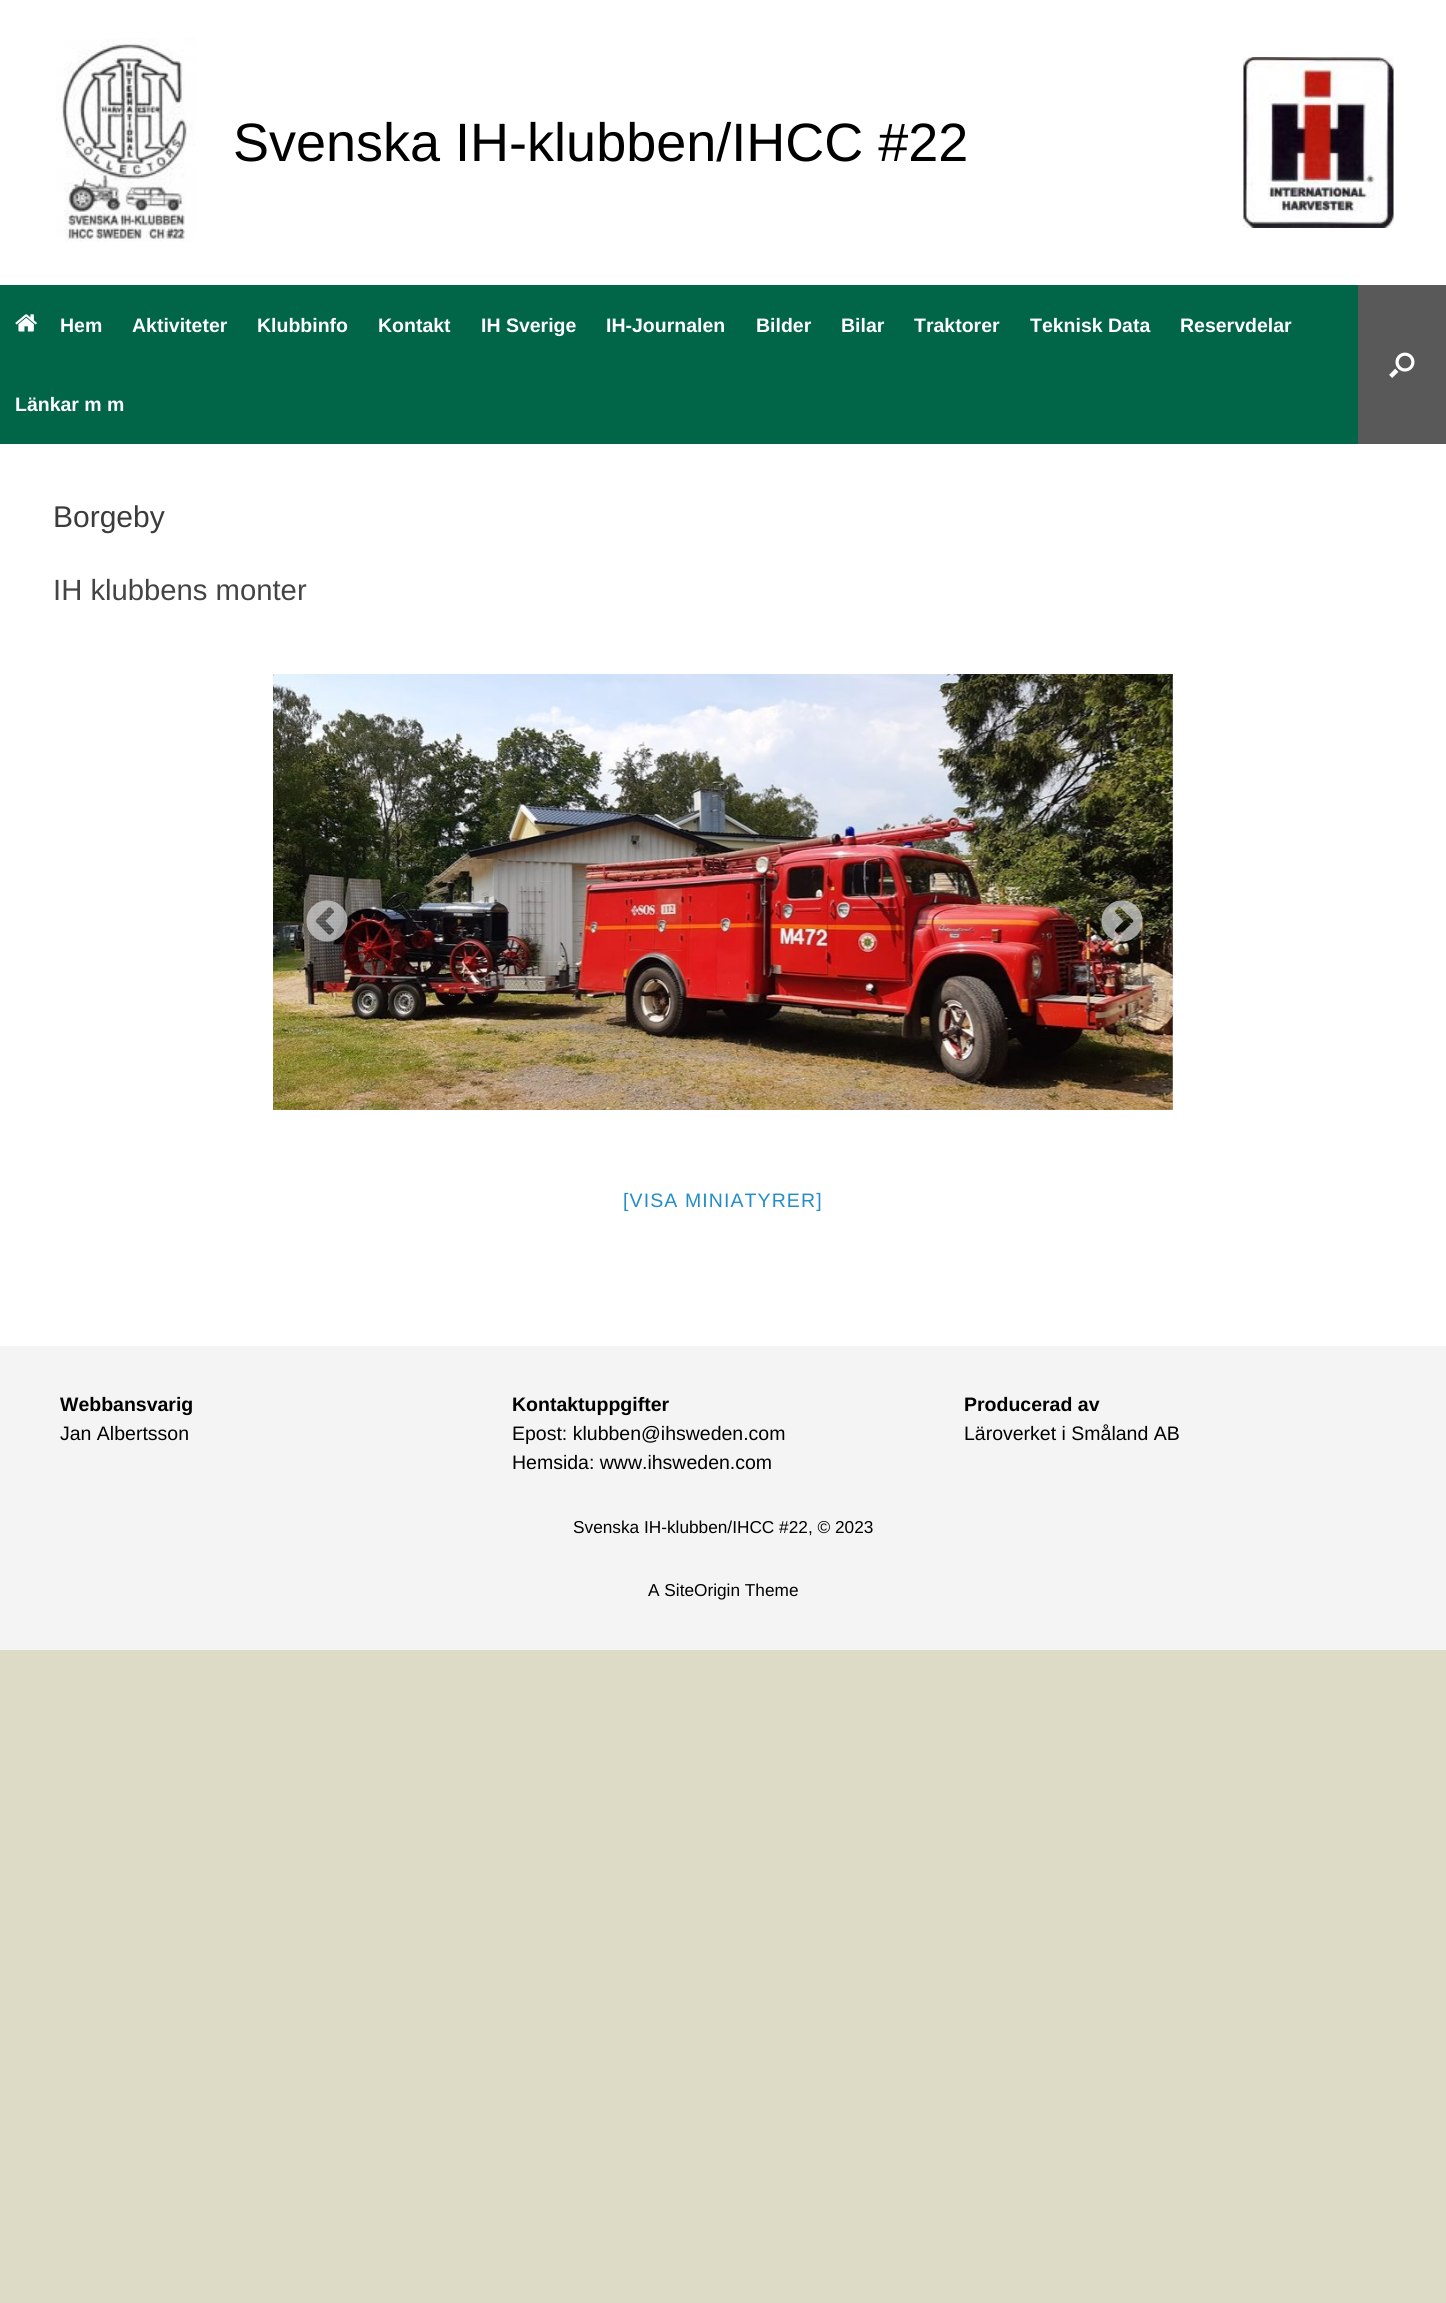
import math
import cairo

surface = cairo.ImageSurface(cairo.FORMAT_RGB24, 1446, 2303)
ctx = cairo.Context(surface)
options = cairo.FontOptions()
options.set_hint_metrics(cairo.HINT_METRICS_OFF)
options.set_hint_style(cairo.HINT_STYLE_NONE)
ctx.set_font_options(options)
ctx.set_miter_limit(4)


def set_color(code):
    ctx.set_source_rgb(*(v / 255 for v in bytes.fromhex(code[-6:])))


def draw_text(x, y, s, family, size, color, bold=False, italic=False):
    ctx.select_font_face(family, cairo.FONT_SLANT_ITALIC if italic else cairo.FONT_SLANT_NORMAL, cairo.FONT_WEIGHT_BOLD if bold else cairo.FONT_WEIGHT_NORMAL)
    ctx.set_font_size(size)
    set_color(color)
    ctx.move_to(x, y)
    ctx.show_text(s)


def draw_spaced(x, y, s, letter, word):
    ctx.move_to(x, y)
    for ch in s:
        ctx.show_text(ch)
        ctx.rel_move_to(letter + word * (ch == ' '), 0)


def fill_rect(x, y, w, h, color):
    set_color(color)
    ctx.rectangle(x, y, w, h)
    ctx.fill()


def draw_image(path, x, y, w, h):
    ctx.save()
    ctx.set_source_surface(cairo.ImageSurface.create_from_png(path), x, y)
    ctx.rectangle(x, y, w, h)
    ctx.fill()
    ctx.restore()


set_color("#dddac5")
ctx.paint()
fill_rect(0, 0, 1446, 285, "#ffffff")
draw_image("assets/img1.png", 56, 38, 139, 204)
draw_text(233, 161, "Svenska IH-klubben/IHCC #22", "Liberation Sans", 54, "#000000")
draw_image("assets/img2.png", 1243, 57, 151, 171)
fill_rect(0, 285, 1358, 159, "#006647")
draw_image("assets/img3.png", 15, 314, 22, 18)
draw_text(60, 332, "Hem", "Liberation Sans", 19.5, "#ffffff", bold=True)
draw_text(132, 332, "Aktiviteter", "Liberation Sans", 19.5, "#ffffff", bold=True)
draw_text(257, 332, "Klubbinfo", "Liberation Sans", 19.5, "#ffffff", bold=True)
draw_text(378, 332, "Kontakt", "Liberation Sans", 19.5, "#ffffff", bold=True)
draw_text(481, 332, "IH Sverige", "Liberation Sans", 19.5, "#ffffff", bold=True)
draw_text(606, 332, "IH-Journalen", "Liberation Sans", 19.5, "#ffffff", bold=True)
draw_text(756, 332, "Bilder", "Liberation Sans", 19.5, "#ffffff", bold=True)
draw_text(841, 332, "Bilar", "Liberation Sans", 19.5, "#ffffff", bold=True)
draw_text(914, 332, "Traktorer", "Liberation Sans", 19.5, "#ffffff", bold=True)
draw_text(1030, 332, "Teknisk Data", "Liberation Sans", 19.5, "#ffffff", bold=True)
draw_text(1180, 332, "Reservdelar", "Liberation Sans", 19.5, "#ffffff", bold=True)
draw_text(15, 411, "Länkar m m", "Liberation Sans", 19.5, "#ffffff", bold=True)
fill_rect(1358, 285, 88, 159, "#595959")
draw_image("assets/img4.png", 1389, 352, 26, 26)
fill_rect(0, 444, 1446, 902, "#ffffff")
draw_text(53, 527, "Borgeby", "Liberation Sans", 30, "#3b3b3b")
draw_text(53, 600, "IH klubbens monter", "Liberation Sans", 29.25, "#444444")
draw_image("assets/img5.png", 273, 674, 900, 436)
draw_image("assets/img6.png", 306, 900, 42, 42)
draw_image("assets/img7.png", 1101, 900, 42, 42)
ctx.set_font_size(19.5)
set_color("#248cc8")
draw_spaced(623, 1207, "[VISA MINIATYRER]", 1.1, 0)
fill_rect(0, 1346, 1446, 304, "#f4f4f4")
draw_text(60, 1411, "Webbansvarig", "Liberation Sans", 19.5, "#000000", bold=True)
draw_text(60, 1440, "Jan Albertsson", "Liberation Sans", 19.5, "#000000")
draw_text(512, 1411, "Kontaktuppgifter", "Liberation Sans", 19.5, "#000000", bold=True)
draw_text(512, 1440, "Epost: klubben@ihsweden.com", "Liberation Sans", 19.5, "#000000")
draw_text(512, 1469, "Hemsida: www.ihsweden.com", "Liberation Sans", 19.5, "#000000")
draw_text(964, 1411, "Producerad av", "Liberation Sans", 19.5, "#000000", bold=True)
draw_text(964, 1440, "Läroverket i Småland AB", "Liberation Sans", 19.5, "#000000")
draw_text(573, 1533, "Svenska IH-klubben/IHCC #22, © 2023", "Liberation Sans", 17.25, "#000000")
draw_text(648, 1596, "A SiteOrigin Theme", "Liberation Sans", 17.25, "#000000")
surface.write_to_png("output.png")
